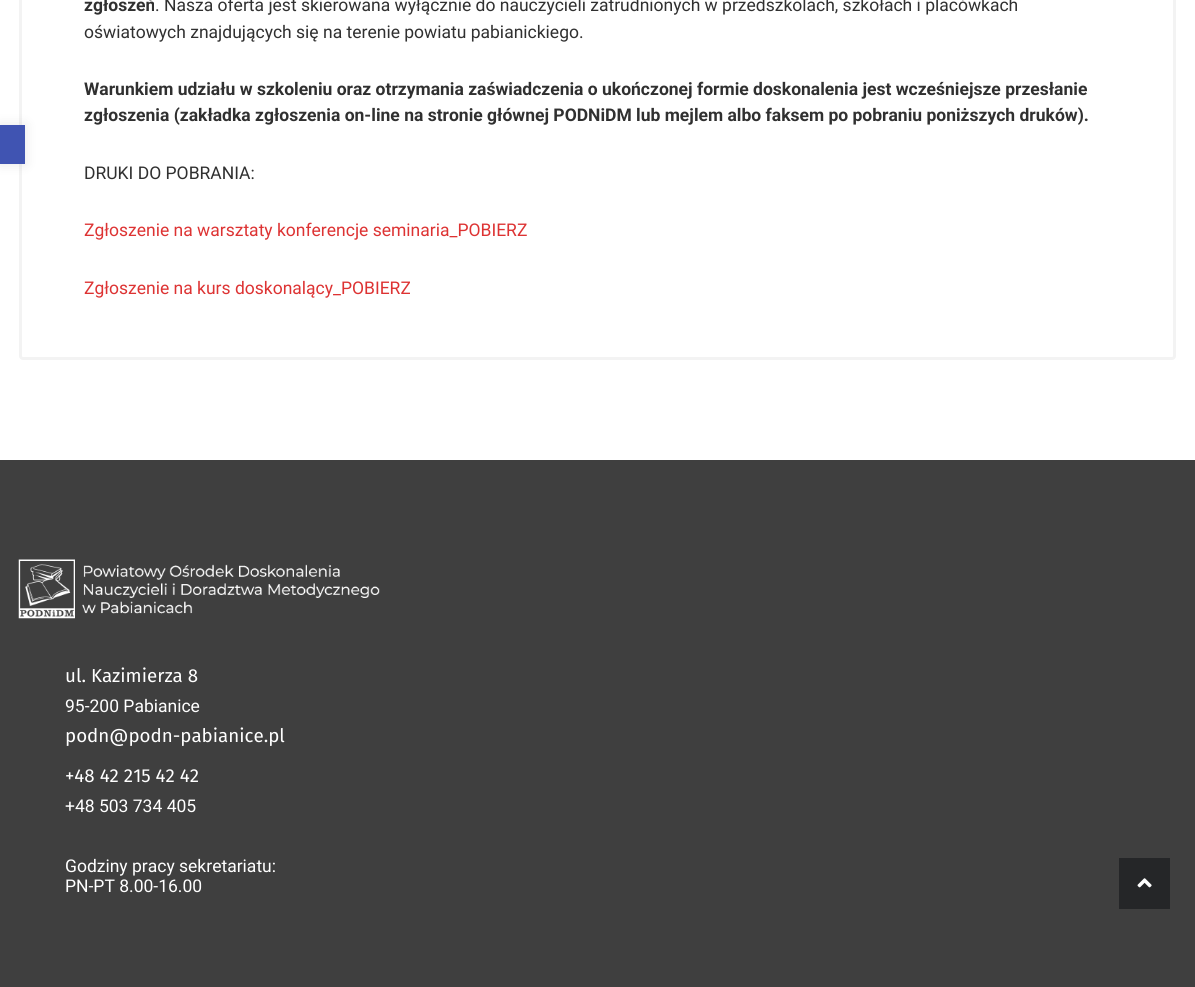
import math
import cairo

surface = cairo.ImageSurface(cairo.FORMAT_RGB24, 1195, 987)
ctx = cairo.Context(surface)
options = cairo.FontOptions()
options.set_hint_metrics(cairo.HINT_METRICS_OFF)
options.set_hint_style(cairo.HINT_STYLE_NONE)
ctx.set_font_options(options)
ctx.set_miter_limit(4)


def set_color(code):
    ctx.set_source_rgb(*(v / 255 for v in bytes.fromhex(code[-6:])))


def draw_text(x, y, s, family, size, color, bold=False, italic=False):
    ctx.select_font_face(family, cairo.FONT_SLANT_ITALIC if italic else cairo.FONT_SLANT_NORMAL, cairo.FONT_WEIGHT_BOLD if bold else cairo.FONT_WEIGHT_NORMAL)
    ctx.set_font_size(size)
    set_color(color)
    ctx.move_to(x, y)
    ctx.show_text(s)


def fill_rect(x, y, w, h, color):
    set_color(color)
    ctx.rectangle(x, y, w, h)
    ctx.fill()


def rounded_rect(x, y, w, h, r):
    ctx.new_sub_path()
    for i, (u, v) in enumerate([(x + w - r, y + h - r), (x + r, y + h - r), (x + r, y + r), (x + w - r, y + r)]):
        ctx.arc(u, v, r, i * math.pi / 2, (i + 1) * math.pi / 2)
    ctx.close_path()


def draw_shadow(x, y, w, h, r, blur, alpha):
    ctx.push_group_with_content(cairo.CONTENT_ALPHA)
    ctx.set_operator(cairo.OPERATOR_SOURCE)
    for i in range(15, -16, -2):
        e = blur * i / 6
        if min(w, h) + 2 * e > 0:
            ctx.set_source_rgba(0, 0, 0, alpha * math.erfc((i - 1) / 8.5) / 2)
            rounded_rect(x - e, y - e, w + 2 * e, h + 2 * e, max(0, min(r + e + blur * .6, min(w, h) / 2 + e)))
            ctx.fill()
    ctx.mask(ctx.pop_group())


def draw_image(path, x, y, w, h):
    ctx.save()
    ctx.set_source_surface(cairo.ImageSurface.create_from_png(path), x, y)
    ctx.rectangle(x, y, w, h)
    ctx.fill()
    ctx.restore()


set_color("#ffffff")
ctx.paint()
rounded_rect(20.5, -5.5, 1154, 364, 2.5)
set_color("#f3f3f3")
ctx.set_line_width(3)
ctx.stroke()
set_color("#000000")
draw_shadow(0, 125, 25, 39, 0, 6, 0.1)
fill_rect(0, 125, 25, 39, "#4054b2")
draw_text(84, 11, "zgłoszeń", "Roboto", 17.5, "#303030", bold=True)
draw_text(155, 11, ". Nasza oferta jest skierowana wyłącznie do nauczycieli zatrudnionych w przedszkolach, szkołach i placówkach", "Roboto", 17.5, "#303030")
draw_text(84, 38, "oświatowych znajdujących się na terenie powiatu pabianickiego.", "Roboto", 17.5, "#303030")
draw_text(84, 95, "Warunkiem udziału w szkoleniu oraz otrzymania zaświadczenia o ukończonej formie doskonalenia jest wcześniejsze przesłanie", "Roboto", 17.5, "#303030", bold=True)
draw_text(84, 121, "zgłoszenia (zakładka zgłoszenia on-line na stronie głównej PODNiDM lub mejlem albo faksem po pobraniu poniższych druków).", "Roboto", 17.5, "#303030", bold=True)
draw_text(84, 179, "DRUKI DO POBRANIA:", "Roboto", 17.5, "#303030")
draw_text(84, 236, "Zgłoszenie na warsztaty konferencje seminaria_POBIERZ", "Roboto", 17.5, "#dd3333")
draw_text(84, 294, "Zgłoszenie na kurs doskonalący_POBIERZ", "Roboto", 17.5, "#dd3333")
fill_rect(0, 460, 1195, 527, "#3f3f3f")
draw_image("assets/img1.png", 18, 559, 362, 60)
draw_text(65, 682, "ul. Kazimierza 8", "Fira Sans", 18.75, "#ffffff")
draw_text(65, 712, "95-200 Pabianice", "Roboto", 17.5, "#ffffff")
draw_text(65, 742, "podn@podn-pabianice.pl", "Fira Sans", 18.75, "#ffffff")
draw_text(65, 782, "+48 42 215 42 42", "Fira Sans", 18.75, "#ffffff")
draw_text(65, 812, "+48 503 734 405", "Roboto", 17.5, "#ffffff")
draw_text(65, 872, "Godziny pracy sekretariatu:", "Roboto", 17.5, "#ffffff")
draw_text(65, 892, "PN-PT 8.00-16.00", "Roboto", 17.5, "#ffffff")
fill_rect(1119, 858, 51, 51, "#252628")
draw_image("assets/img2.png", 1137, 878, 15, 10)
surface.write_to_png("output.png")
